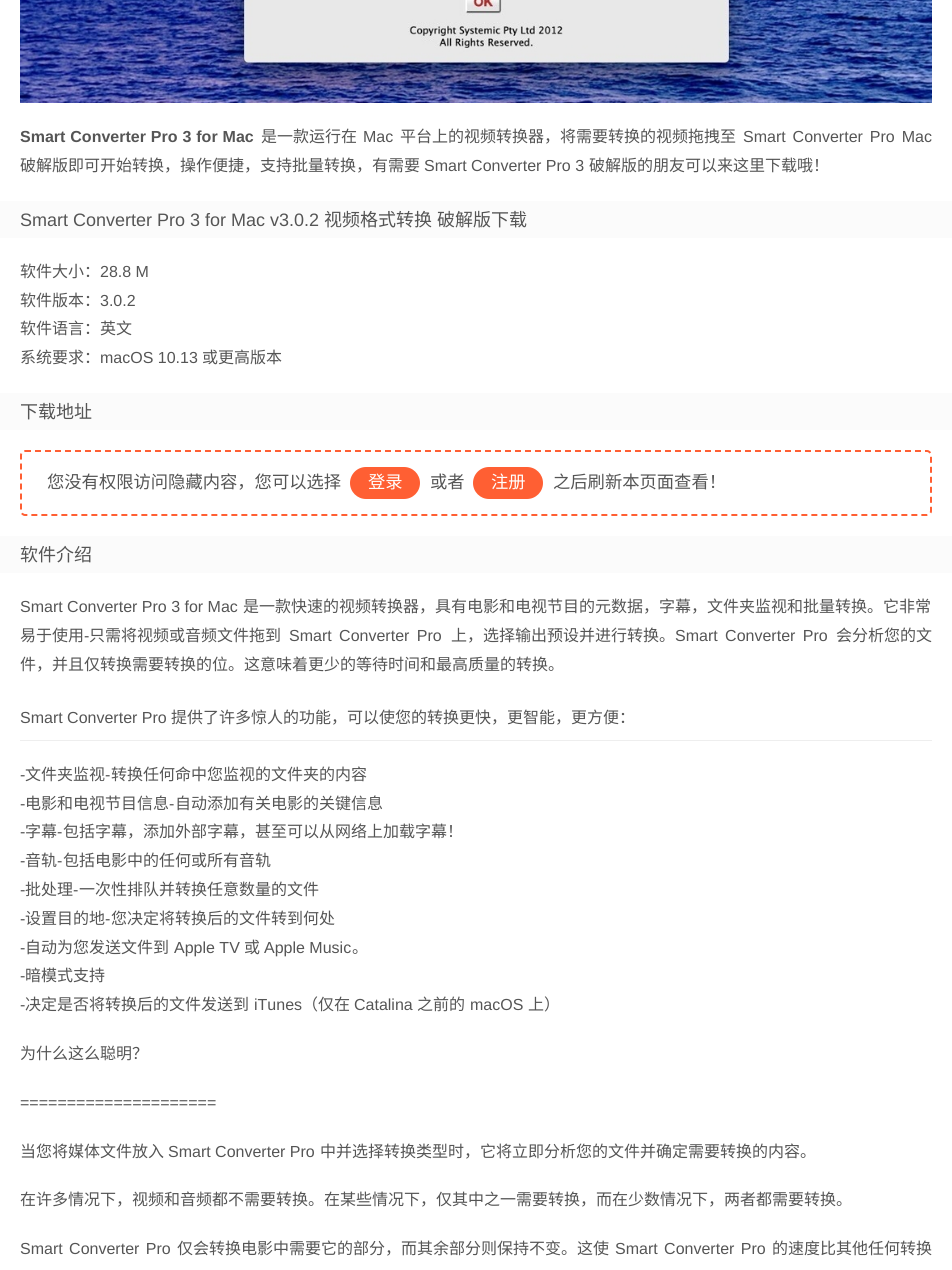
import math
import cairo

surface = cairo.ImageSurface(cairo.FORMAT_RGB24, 952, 1270)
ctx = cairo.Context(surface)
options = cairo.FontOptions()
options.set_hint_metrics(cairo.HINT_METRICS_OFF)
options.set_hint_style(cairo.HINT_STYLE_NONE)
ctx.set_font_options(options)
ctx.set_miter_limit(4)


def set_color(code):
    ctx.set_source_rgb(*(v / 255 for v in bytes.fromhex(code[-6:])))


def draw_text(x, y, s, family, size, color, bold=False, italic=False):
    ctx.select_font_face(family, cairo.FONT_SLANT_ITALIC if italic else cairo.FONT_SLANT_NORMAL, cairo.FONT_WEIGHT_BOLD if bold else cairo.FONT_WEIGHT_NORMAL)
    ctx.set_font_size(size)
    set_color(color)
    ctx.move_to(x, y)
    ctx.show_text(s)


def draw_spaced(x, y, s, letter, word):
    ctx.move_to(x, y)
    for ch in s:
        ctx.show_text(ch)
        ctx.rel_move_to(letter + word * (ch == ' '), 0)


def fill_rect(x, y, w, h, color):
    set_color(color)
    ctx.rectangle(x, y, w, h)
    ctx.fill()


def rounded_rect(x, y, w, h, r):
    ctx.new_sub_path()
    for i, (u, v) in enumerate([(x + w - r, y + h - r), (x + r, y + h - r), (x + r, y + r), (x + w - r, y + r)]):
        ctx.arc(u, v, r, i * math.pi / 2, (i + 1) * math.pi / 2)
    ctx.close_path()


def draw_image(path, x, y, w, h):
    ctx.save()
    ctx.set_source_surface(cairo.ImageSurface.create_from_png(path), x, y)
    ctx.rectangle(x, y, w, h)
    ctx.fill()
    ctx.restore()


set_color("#ffffff")
ctx.paint()
draw_image("assets/img1.png", 20, 0, 912, 103)
ctx.select_font_face("Liberation Sans", cairo.FONT_SLANT_NORMAL, cairo.FONT_WEIGHT_BOLD)
ctx.set_font_size(16)
set_color("#555555")
draw_spaced(20, 142, "Smart Converter Pro 3 for Mac", 0, 0.5)
draw_text(261, 142, "是一款运行在", "Noto Sans CJK SC", 16, "#555555")
draw_text(363, 142, "Mac", "Liberation Sans", 16, "#555555")
draw_text(400, 142, "平台上的视频转换器，将需要转换的视频拖拽至", "Noto Sans CJK SC", 16, "#555555")
ctx.select_font_face("Liberation Sans")
draw_spaced(743, 142, "Smart Converter Pro Mac", 0, 2.5)
draw_text(20, 171, "破解版即可开始转换，操作便捷，支持批量转换，有需要", "Noto Sans CJK SC", 16, "#555555")
draw_text(424, 171, "Smart Converter Pro 3", "Liberation Sans", 16, "#555555")
draw_text(589, 171, "破解版的朋友可以来这里下载哦！", "Noto Sans CJK SC", 16, "#555555")
fill_rect(0, 201, 952, 37, "#fbfbfb")
draw_text(20, 226, "Smart Converter Pro 3 for Mac v3.0.2", "Liberation Sans", 18, "#555555")
draw_text(324, 226, "视频格式转换", "Noto Sans CJK SC", 18, "#555555")
draw_text(437, 226, "破解版下载", "Noto Sans CJK SC", 18, "#555555")
draw_text(20, 277, "软件大小：", "Noto Sans CJK SC", 16, "#555555")
draw_text(100, 277, "28.8 M", "Liberation Sans", 16, "#555555")
draw_text(20, 306, "软件版本：", "Noto Sans CJK SC", 16, "#555555")
draw_text(100, 306, "3.0.2", "Liberation Sans", 16, "#555555")
draw_text(20, 334, "软件语言：英文", "Noto Sans CJK SC", 16, "#555555")
draw_text(20, 363, "系统要求：", "Noto Sans CJK SC", 16, "#555555")
draw_text(100, 363, "macOS 10.13", "Liberation Sans", 16, "#555555")
draw_text(202, 363, "或更高版本", "Noto Sans CJK SC", 16, "#555555")
fill_rect(0, 393, 952, 37, "#fbfbfb")
draw_text(20, 418, "下载地址", "Noto Sans CJK SC", 18, "#555555")
ctx.new_path()
ctx.move_to(25, 451)
ctx.line_to(927, 451)
ctx.curve_to(929, 451, 931, 453, 931, 455)
ctx.line_to(931, 511)
ctx.curve_to(931, 513, 929, 515, 927, 515)
ctx.line_to(25, 515)
ctx.curve_to(23, 515, 21, 513, 21, 511)
ctx.line_to(21, 455)
ctx.curve_to(21, 453, 23, 451, 25, 451)
ctx.close_path()
set_color("#ff5f33")
ctx.set_dash([6, 4])
ctx.stroke()
draw_text(47, 488, "您没有权限访问隐藏内容，您可以选择", "Noto Sans CJK SC", 17.3, "#555555")
set_color("#ff5f33")
rounded_rect(350, 467, 70, 32, 16)
ctx.fill()
draw_text(368, 488, "登录", "Noto Sans CJK SC", 17.3, "#ffffff")
draw_text(430, 488, "或者", "Noto Sans CJK SC", 17.3, "#555555")
set_color("#ff5f33")
rounded_rect(473, 467, 70, 32, 16)
ctx.fill()
draw_text(491, 488, "注册", "Noto Sans CJK SC", 17.3, "#ffffff")
draw_text(553, 488, "之后刷新本页面查看！", "Noto Sans CJK SC", 17.3, "#555555")
fill_rect(0, 536, 952, 37, "#fbfbfb")
draw_text(20, 561, "软件介绍", "Noto Sans CJK SC", 18, "#555555")
draw_text(20, 612, "Smart Converter Pro 3 for Mac", "Liberation Sans", 16, "#555555")
draw_text(243, 612, "是一款快速的视频转换器，具有电影和电视节目的元数据，字幕，文件夹监视和批量转换。它非常", "Noto Sans CJK SC", 16, "#555555")
draw_text(20, 641, "易于使用", "Noto Sans CJK SC", 16, "#555555")
draw_text(84, 641, "-", "Liberation Sans", 16, "#555555")
draw_text(89, 641, "只需将视频或音频文件拖到", "Noto Sans CJK SC", 16, "#555555")
ctx.select_font_face("Liberation Sans")
draw_spaced(289, 641, "Smart Converter Pro", 0, 3)
draw_text(451, 641, "上，选择输出预设并进行转换。", "Noto Sans CJK SC", 16, "#555555")
ctx.select_font_face("Liberation Sans")
draw_spaced(675, 641, "Smart Converter Pro", 0, 3)
draw_text(836, 641, "会分析您的文", "Noto Sans CJK SC", 16, "#555555")
draw_text(20, 670, "件，并且仅转换需要转换的位。这意味着更少的等待时间和最高质量的转换。", "Noto Sans CJK SC", 16, "#555555")
fill_rect(20, 740, 912, 1, "#eeeeee")
draw_text(20, 723, "Smart Converter Pro", "Liberation Sans", 16, "#555555")
draw_text(171, 723, "提供了许多惊人的功能，可以使您的转换更快，更智能，更方便：", "Noto Sans CJK SC", 16, "#555555")
draw_text(20, 780, "-", "Liberation Sans", 16, "#555555")
draw_text(25, 780, "文件夹监视", "Noto Sans CJK SC", 16, "#555555")
draw_text(105, 780, "-", "Liberation Sans", 16, "#555555")
draw_text(111, 780, "转换任何命中您监视的文件夹的内容", "Noto Sans CJK SC", 16, "#555555")
draw_text(20, 809, "-", "Liberation Sans", 16, "#555555")
draw_text(25, 809, "电影和电视节目信息", "Noto Sans CJK SC", 16, "#555555")
draw_text(169, 809, "-", "Liberation Sans", 16, "#555555")
draw_text(175, 809, "自动添加有关电影的关键信息", "Noto Sans CJK SC", 16, "#555555")
draw_text(20, 837, "-", "Liberation Sans", 16, "#555555")
draw_text(25, 837, "字幕", "Noto Sans CJK SC", 16, "#555555")
draw_text(57, 837, "-", "Liberation Sans", 16, "#555555")
draw_text(63, 837, "包括字幕，添加外部字幕，甚至可以从网络上加载字幕！", "Noto Sans CJK SC", 16, "#555555")
draw_text(20, 866, "-", "Liberation Sans", 16, "#555555")
draw_text(25, 866, "音轨", "Noto Sans CJK SC", 16, "#555555")
draw_text(57, 866, "-", "Liberation Sans", 16, "#555555")
draw_text(63, 866, "包括电影中的任何或所有音轨", "Noto Sans CJK SC", 16, "#555555")
draw_text(20, 895, "-", "Liberation Sans", 16, "#555555")
draw_text(25, 895, "批处理", "Noto Sans CJK SC", 16, "#555555")
draw_text(73, 895, "-", "Liberation Sans", 16, "#555555")
draw_text(79, 895, "一次性排队并转换任意数量的文件", "Noto Sans CJK SC", 16, "#555555")
draw_text(20, 924, "-", "Liberation Sans", 16, "#555555")
draw_text(25, 924, "设置目的地", "Noto Sans CJK SC", 16, "#555555")
draw_text(105, 924, "-", "Liberation Sans", 16, "#555555")
draw_text(111, 924, "您决定将转换后的文件转到何处", "Noto Sans CJK SC", 16, "#555555")
draw_text(20, 953, "-", "Liberation Sans", 16, "#555555")
draw_text(25, 953, "自动为您发送文件到", "Noto Sans CJK SC", 16, "#555555")
draw_text(174, 953, "Apple TV", "Liberation Sans", 16, "#555555")
draw_text(244, 953, "或", "Noto Sans CJK SC", 16, "#555555")
draw_text(264, 953, "Apple Music", "Liberation Sans", 16, "#555555")
draw_text(352, 953, "。", "Noto Sans CJK SC", 16, "#555555")
draw_text(20, 981, "-", "Liberation Sans", 16, "#555555")
draw_text(25, 981, "暗模式支持", "Noto Sans CJK SC", 16, "#555555")
draw_text(20, 1010, "-", "Liberation Sans", 16, "#555555")
draw_text(25, 1010, "决定是否将转换后的文件发送到", "Noto Sans CJK SC", 16, "#555555")
draw_text(254, 1010, "iTunes", "Liberation Sans", 16, "#555555")
draw_text(302, 1010, "（仅在", "Noto Sans CJK SC", 16, "#555555")
draw_text(354, 1010, "Catalina", "Liberation Sans", 16, "#555555")
draw_text(417, 1010, "之前的", "Noto Sans CJK SC", 16, "#555555")
draw_text(470, 1010, "macOS", "Liberation Sans", 16, "#555555")
draw_text(528, 1010, "上）", "Noto Sans CJK SC", 16, "#555555")
draw_text(20, 1059, "为什么这么聪明？", "Noto Sans CJK SC", 16, "#555555")
draw_text(20, 1108, "=====================", "Liberation Sans", 16, "#555555")
draw_text(20, 1157, "当您将媒体文件放入", "Noto Sans CJK SC", 16, "#555555")
draw_text(168, 1157, "Smart Converter Pro", "Liberation Sans", 16, "#555555")
draw_text(320, 1157, "中并选择转换类型时，它将立即分析您的文件并确定需要转换的内容。", "Noto Sans CJK SC", 16, "#555555")
draw_text(20, 1205, "在许多情况下，视频和音频都不需要转换。在某些情况下，仅其中之一需要转换，而在少数情况下，两者都需要转换。", "Noto Sans CJK SC", 16, "#555555")
ctx.select_font_face("Liberation Sans")
draw_spaced(20, 1254, "Smart Converter Pro", 0, 2)
draw_text(177, 1254, "仅会转换电影中需要它的部分，而其余部分则保持不变。这使", "Noto Sans CJK SC", 16, "#555555")
ctx.select_font_face("Liberation Sans")
draw_spaced(615, 1254, "Smart Converter Pro", 0, 2)
draw_text(772, 1254, "的速度比其他任何转换", "Noto Sans CJK SC", 16, "#555555")
surface.write_to_png("output.png")
